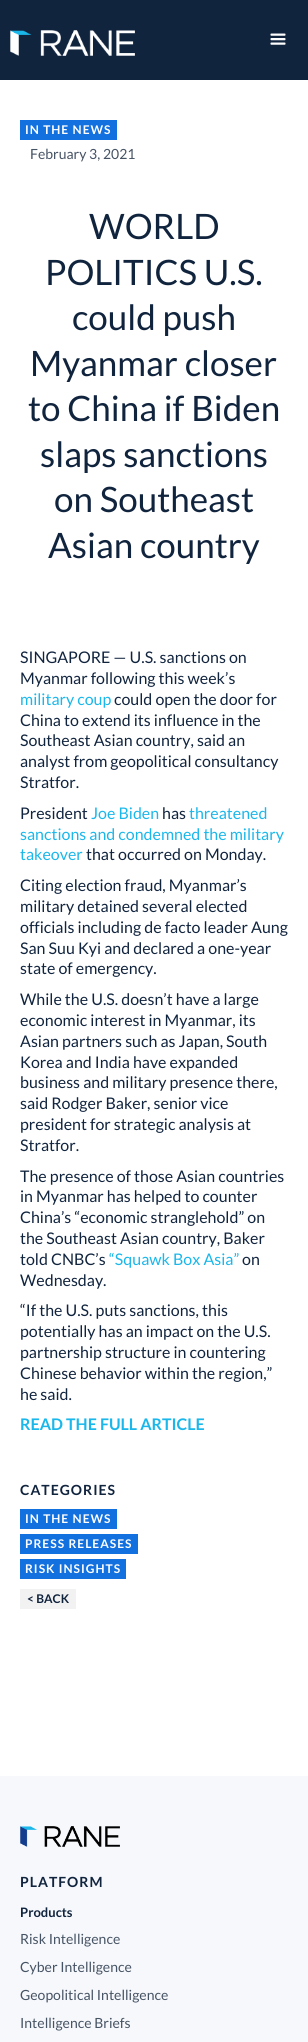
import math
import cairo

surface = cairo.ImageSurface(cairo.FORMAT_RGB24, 308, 2042)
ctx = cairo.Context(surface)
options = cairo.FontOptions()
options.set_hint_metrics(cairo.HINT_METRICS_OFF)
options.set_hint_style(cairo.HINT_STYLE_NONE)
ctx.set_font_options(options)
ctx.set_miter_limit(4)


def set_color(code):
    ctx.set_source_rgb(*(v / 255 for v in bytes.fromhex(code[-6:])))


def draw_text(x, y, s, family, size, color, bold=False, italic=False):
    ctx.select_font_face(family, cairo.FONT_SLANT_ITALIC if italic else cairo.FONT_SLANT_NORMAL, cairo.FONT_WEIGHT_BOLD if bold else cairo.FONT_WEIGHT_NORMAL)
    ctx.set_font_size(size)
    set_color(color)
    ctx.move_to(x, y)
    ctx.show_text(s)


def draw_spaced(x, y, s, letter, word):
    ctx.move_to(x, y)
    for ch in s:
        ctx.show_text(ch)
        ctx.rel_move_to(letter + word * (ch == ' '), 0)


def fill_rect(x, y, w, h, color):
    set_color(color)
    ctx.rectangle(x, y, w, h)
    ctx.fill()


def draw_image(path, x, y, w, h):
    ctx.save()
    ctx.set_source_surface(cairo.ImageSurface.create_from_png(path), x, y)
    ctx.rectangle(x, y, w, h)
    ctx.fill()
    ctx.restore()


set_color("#ffffff")
ctx.paint()
fill_rect(0, 0, 308, 80, "#11243e")
draw_image("assets/img1.png", 10, 30, 125, 26)
draw_image("assets/img2.png", 270, 33, 16, 12)
fill_rect(20, 120, 97, 20, "#1270df")
ctx.select_font_face("Lato", cairo.FONT_SLANT_NORMAL, cairo.FONT_WEIGHT_BOLD)
ctx.set_font_size(12)
set_color("#ffffff")
draw_spaced(25, 134, "IN THE NEWS", 1, 0)
draw_text(30, 159, "February 3, 2021", "Lato", 14, "#465364")
draw_text(89, 239, "WORLD", "Lato", 35, "#11243e")
draw_text(45, 285, "POLITICS U.S.", "Lato", 35, "#11243e")
draw_text(72, 330, "could push", "Lato", 35, "#11243e")
draw_text(30, 376, "Myanmar closer", "Lato", 35, "#11243e")
draw_text(28, 421, "to China if Biden", "Lato", 35, "#11243e")
draw_text(40, 467, "slaps sanctions", "Lato", 35, "#11243e")
draw_text(54, 512, "on Southeast", "Lato", 35, "#11243e")
draw_text(48, 558, "Asian country", "Lato", 35, "#11243e")
draw_text(20, 663, "SINGAPORE — U.S. sanctions on", "Lato", 16, "#11243e")
draw_text(20, 684, "Myanmar following this week’s", "Lato", 16, "#11243e")
draw_text(20, 705, "military coup", "Lato", 16, "#1ab7eb")
draw_text(114, 705, "could open the door for", "Lato", 16, "#11243e")
draw_text(20, 726, "China to extend its influence in the", "Lato", 16, "#11243e")
draw_text(20, 746, "Southeast Asian country, said an", "Lato", 16, "#11243e")
draw_text(20, 767, "analyst from geopolitical consultancy", "Lato", 16, "#11243e")
draw_text(20, 788, "Stratfor.", "Lato", 16, "#11243e")
draw_text(20, 819, "President", "Lato", 16, "#11243e")
draw_text(91, 819, "Joe Biden", "Lato", 16, "#1ab7eb")
draw_text(162, 819, "has", "Lato", 16, "#11243e")
draw_text(189, 819, "threatened", "Lato", 16, "#1ab7eb")
draw_text(20, 840, "sanctions and condemned the military", "Lato", 16, "#1ab7eb")
draw_text(20, 860, "takeover", "Lato", 16, "#1ab7eb")
draw_text(86, 860, "that occurred on Monday.", "Lato", 16, "#11243e")
draw_text(20, 891, "Citing election fraud, Myanmar’s", "Lato", 16, "#11243e")
draw_text(20, 912, "military detained several elected", "Lato", 16, "#11243e")
draw_text(20, 933, "officials including de facto leader Aung", "Lato", 16, "#11243e")
draw_text(20, 954, "San Suu Kyi and declared a one-year", "Lato", 16, "#11243e")
draw_text(20, 974, "state of emergency.", "Lato", 16, "#11243e")
draw_text(20, 1005, "While the U.S. doesn’t have a large", "Lato", 16, "#11243e")
draw_text(20, 1026, "economic interest in Myanmar, its", "Lato", 16, "#11243e")
draw_text(20, 1047, "Asian partners such as Japan, South", "Lato", 16, "#11243e")
draw_text(20, 1068, "Korea and India have expanded", "Lato", 16, "#11243e")
draw_text(20, 1088, "business and military presence there,", "Lato", 16, "#11243e")
draw_text(20, 1109, "said Rodger Baker, senior vice", "Lato", 16, "#11243e")
draw_text(20, 1130, "president for strategic analysis at", "Lato", 16, "#11243e")
draw_text(20, 1151, "Stratfor.", "Lato", 16, "#11243e")
draw_text(20, 1182, "The presence of those Asian countries", "Lato", 16, "#11243e")
draw_text(20, 1202, "in Myanmar has helped to counter", "Lato", 16, "#11243e")
draw_text(20, 1223, "China’s “economic stranglehold” on", "Lato", 16, "#11243e")
draw_text(20, 1244, "the Southeast Asian country, Baker", "Lato", 16, "#11243e")
draw_text(20, 1265, "told CNBC’s", "Lato", 16, "#11243e")
draw_text(109, 1265, "“Squawk Box Asia”", "Lato", 16, "#1ab7eb")
draw_text(242, 1265, "on", "Lato", 16, "#11243e")
draw_text(20, 1286, "Wednesday.", "Lato", 16, "#11243e")
draw_text(20, 1316, "“If the U.S. puts sanctions, this", "Lato", 16, "#11243e")
draw_text(20, 1337, "potentially has an impact on the U.S.", "Lato", 16, "#11243e")
draw_text(20, 1358, "partnership structure in countering", "Lato", 16, "#11243e")
draw_text(20, 1379, "Chinese behavior within the region,”", "Lato", 16, "#11243e")
draw_text(20, 1400, "he said.", "Lato", 16, "#11243e")
draw_text(20, 1430, "READ THE FULL ARTICLE", "Lato", 16, "#1ab7eb", bold=True)
ctx.set_font_size(14)
set_color("#11243e")
draw_spaced(20, 1495, "CATEGORIES", 1, 0)
fill_rect(20, 1509, 97, 20, "#1270df")
ctx.set_font_size(12)
set_color("#ffffff")
draw_spaced(25, 1523, "IN THE NEWS", 1, 0)
fill_rect(20, 1534, 118, 20, "#1270df")
set_color("#ffffff")
draw_spaced(25, 1548, "PRESS RELEASES", 1, 0)
fill_rect(20, 1559, 106, 20, "#1270df")
set_color("#ffffff")
draw_spaced(25, 1573, "RISK INSIGHTS", 1, 0)
fill_rect(20, 1589, 56, 20, "#f2f2f2")
draw_text(27, 1603, "< BACK", "Lato", 12, "#11243e", bold=True)
fill_rect(0, 1776, 308, 266, "#f6f8fb")
draw_image("assets/img3.png", 20, 1826, 100, 21)
ctx.set_font_size(14)
set_color("#11243e")
draw_spaced(20, 1887, "PLATFORM", 1, 0)
draw_text(20, 1917, "Products", "Lato", 13, "#11243e", bold=True)
draw_text(20, 1944, "Risk Intelligence", "Lato", 14, "#465364")
draw_text(20, 1972, "Cyber Intelligence", "Lato", 14, "#465364")
draw_text(20, 2000, "Geopolitical Intelligence", "Lato", 14, "#465364")
draw_text(20, 2028, "Intelligence Briefs", "Lato", 14, "#465364")
surface.write_to_png("output.png")
